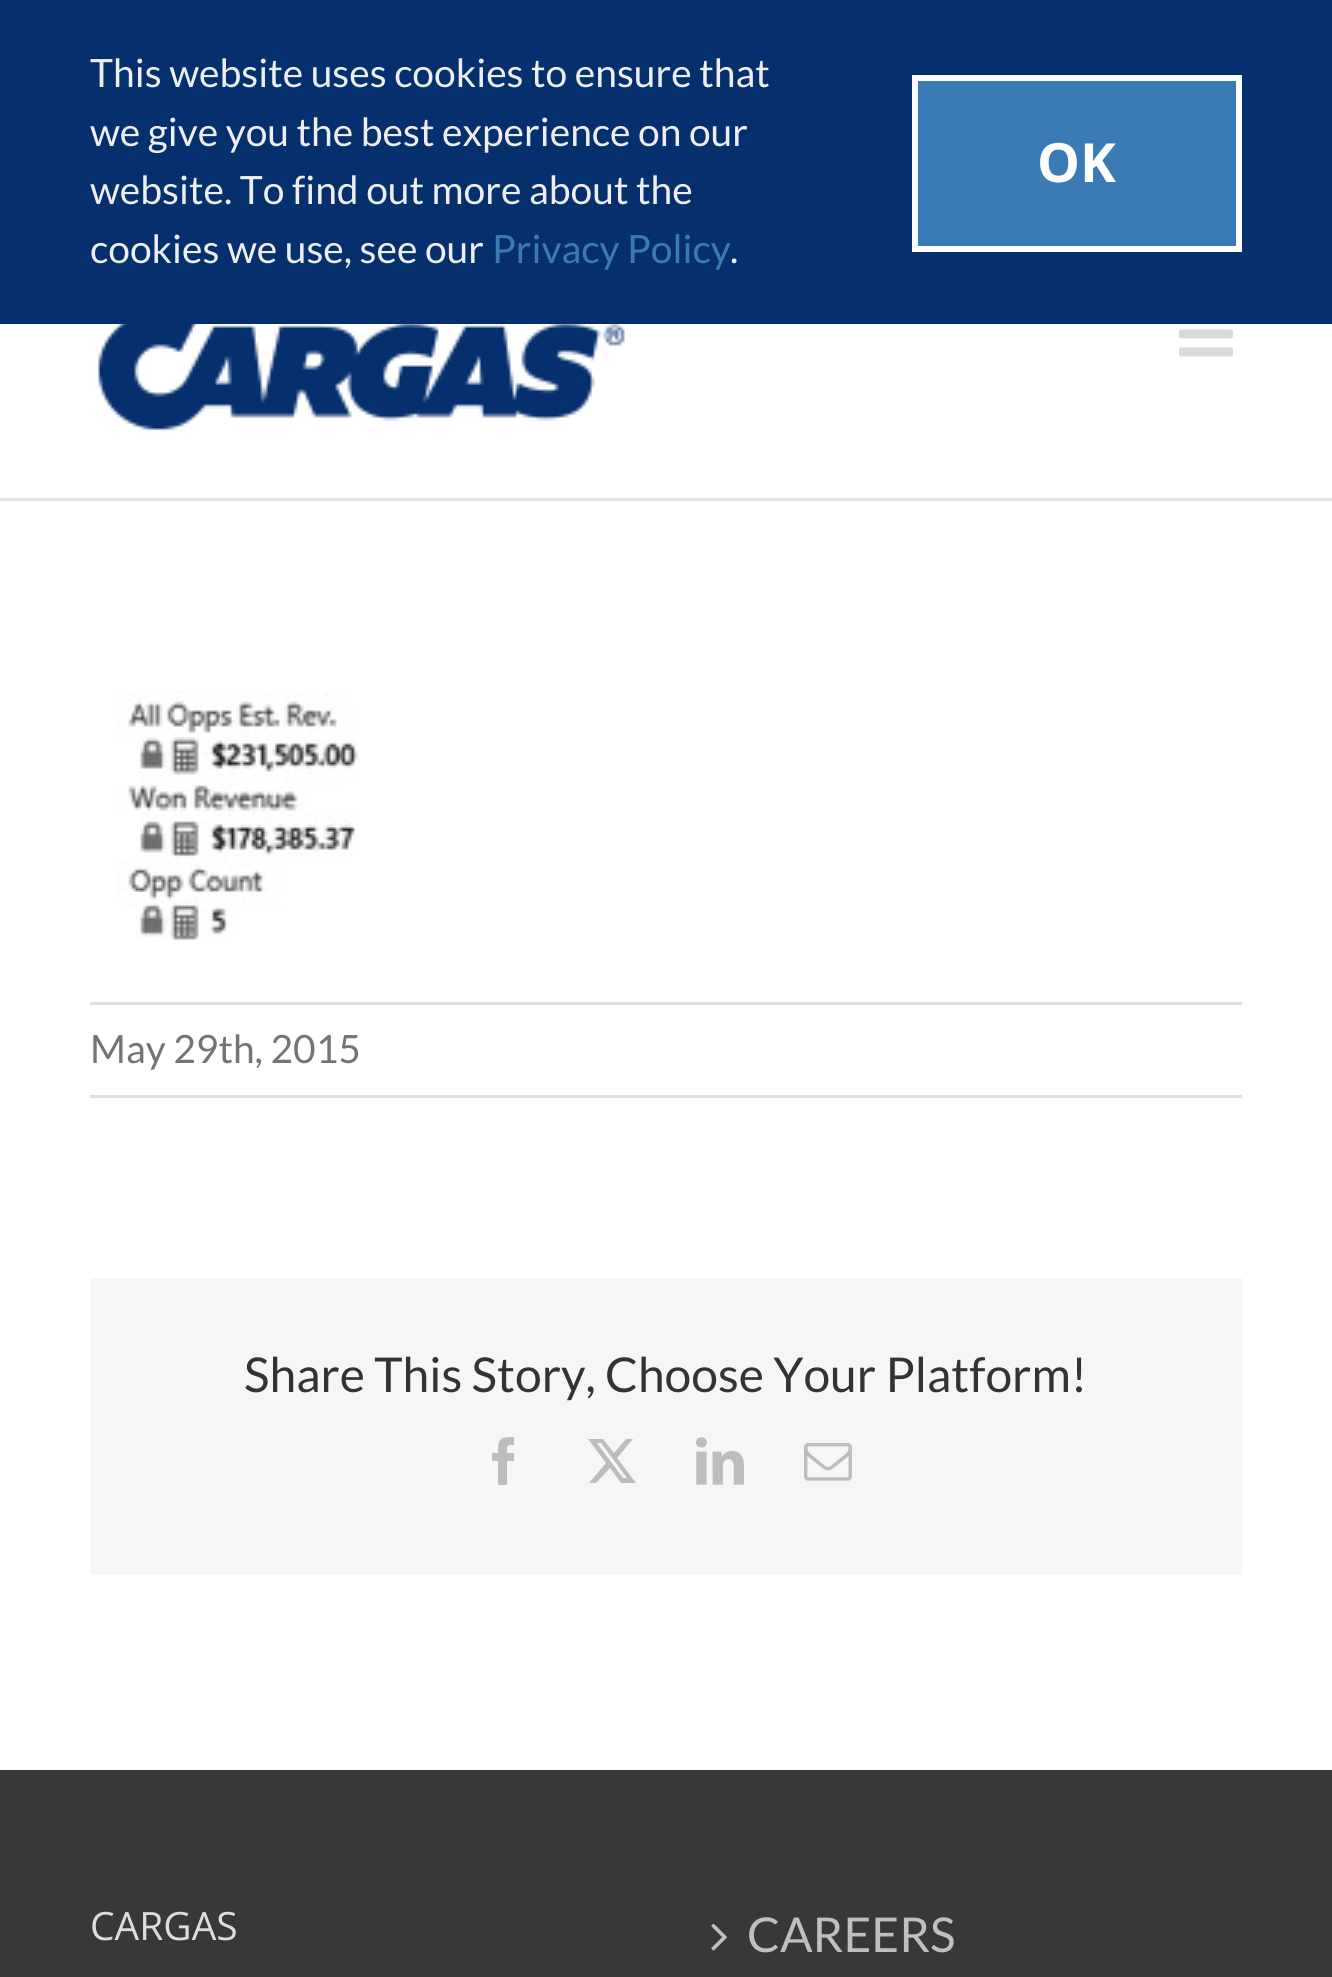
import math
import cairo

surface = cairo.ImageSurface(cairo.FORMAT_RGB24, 1332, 1977)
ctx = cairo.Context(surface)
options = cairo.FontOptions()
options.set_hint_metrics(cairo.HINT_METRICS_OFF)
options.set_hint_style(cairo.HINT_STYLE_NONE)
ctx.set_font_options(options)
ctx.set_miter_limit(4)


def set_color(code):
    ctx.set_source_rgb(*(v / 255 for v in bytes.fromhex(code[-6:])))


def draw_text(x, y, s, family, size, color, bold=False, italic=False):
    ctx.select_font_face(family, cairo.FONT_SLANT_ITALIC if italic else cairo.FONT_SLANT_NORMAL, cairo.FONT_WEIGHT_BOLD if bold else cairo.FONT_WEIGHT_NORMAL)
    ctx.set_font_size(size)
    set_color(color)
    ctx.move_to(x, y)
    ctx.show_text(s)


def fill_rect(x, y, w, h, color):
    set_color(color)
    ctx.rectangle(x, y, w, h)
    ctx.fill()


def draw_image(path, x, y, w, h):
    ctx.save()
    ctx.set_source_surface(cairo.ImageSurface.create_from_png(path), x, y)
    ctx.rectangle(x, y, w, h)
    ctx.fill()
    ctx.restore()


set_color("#ffffff")
ctx.paint()
fill_rect(0, 0, 1332, 324, "#062f6e")
draw_text(90, 87, "This website uses cookies to ensure that", "Lato", 39, "#eeeeee")
draw_text(90, 146, "we give you the best experience on our", "Lato", 39, "#eeeeee")
draw_text(90, 204, "website. To find out more about the", "Lato", 39, "#eeeeee")
draw_text(90, 263, "cookies we use, see our", "Lato", 39, "#eeeeee")
draw_text(492, 263, "Privacy Policy", "Lato", 39, "#3a7bb5")
draw_text(730, 263, ".", "Lato", 39, "#eeeeee")
set_color("#3a7bb5")
ctx.rectangle(915, 78, 324, 171)
ctx.fill_preserve()
set_color("#ffffff")
ctx.set_line_width(6)
ctx.stroke()
draw_text(1037, 182, "OK", "Open Sans", 54, "#ffffff", bold=True)
fill_rect(0, 498, 1332, 3, "#e5e5e5")
draw_image("assets/img1.png", 98, 324, 527, 106)
draw_image("assets/img2.png", 1179, 329, 54, 28)
draw_image("assets/img3.png", 115, 690, 243, 252)
fill_rect(90, 1002, 1152, 3, "#e0dede")
fill_rect(90, 1095, 1152, 3, "#e0dede")
draw_text(90, 1063, "May 29th, 2015", "Lato", 39, "#747474")
fill_rect(90, 1278, 1152, 297, "#f6f6f6")
draw_text(244, 1392, "Share This Story, Choose Your Platform!", "Lato", 48, "#333333")
set_color("#bebdbd")
ctx.new_path()
ctx.move_to(507, 1485)
ctx.line_to(498, 1485)
ctx.line_to(498, 1461)
ctx.line_to(492, 1461)
ctx.line_to(492, 1453)
ctx.line_to(498, 1453)
ctx.curve_to(498, 1438, 500, 1437, 514, 1437)
ctx.line_to(514, 1445)
ctx.curve_to(506, 1445, 507, 1445, 507, 1453)
ctx.line_to(514, 1453)
ctx.line_to(514, 1461)
ctx.line_to(507, 1461)
ctx.close_path()
ctx.fill()
ctx.new_path()
ctx.move_to(626, 1439)
ctx.line_to(633, 1439)
ctx.line_to(617, 1458)
ctx.line_to(636, 1483)
ctx.line_to(621, 1483)
ctx.line_to(610, 1468)
ctx.line_to(596, 1483)
ctx.line_to(589, 1483)
ctx.line_to(606, 1463)
ctx.line_to(588, 1439)
ctx.line_to(603, 1439)
ctx.line_to(614, 1453)
ctx.close_path()
ctx.move_to(623, 1478)
ctx.line_to(627, 1478)
ctx.line_to(601, 1443)
ctx.line_to(597, 1443)
ctx.close_path()
ctx.fill()
draw_image("assets/img4.png", 696, 1437, 48, 48)
draw_image("assets/img5.png", 804, 1443, 48, 38)
fill_rect(0, 1770, 1332, 207, "#363839")
draw_text(90, 1940, "CARGAS", "Open Sans", 39, "#dddddd")
draw_image("assets/img6.png", 711, 1923, 16, 28)
draw_text(747, 1952, "CAREERS", "Lato", 48, "#bfbfbf")
surface.write_to_png("output.png")
